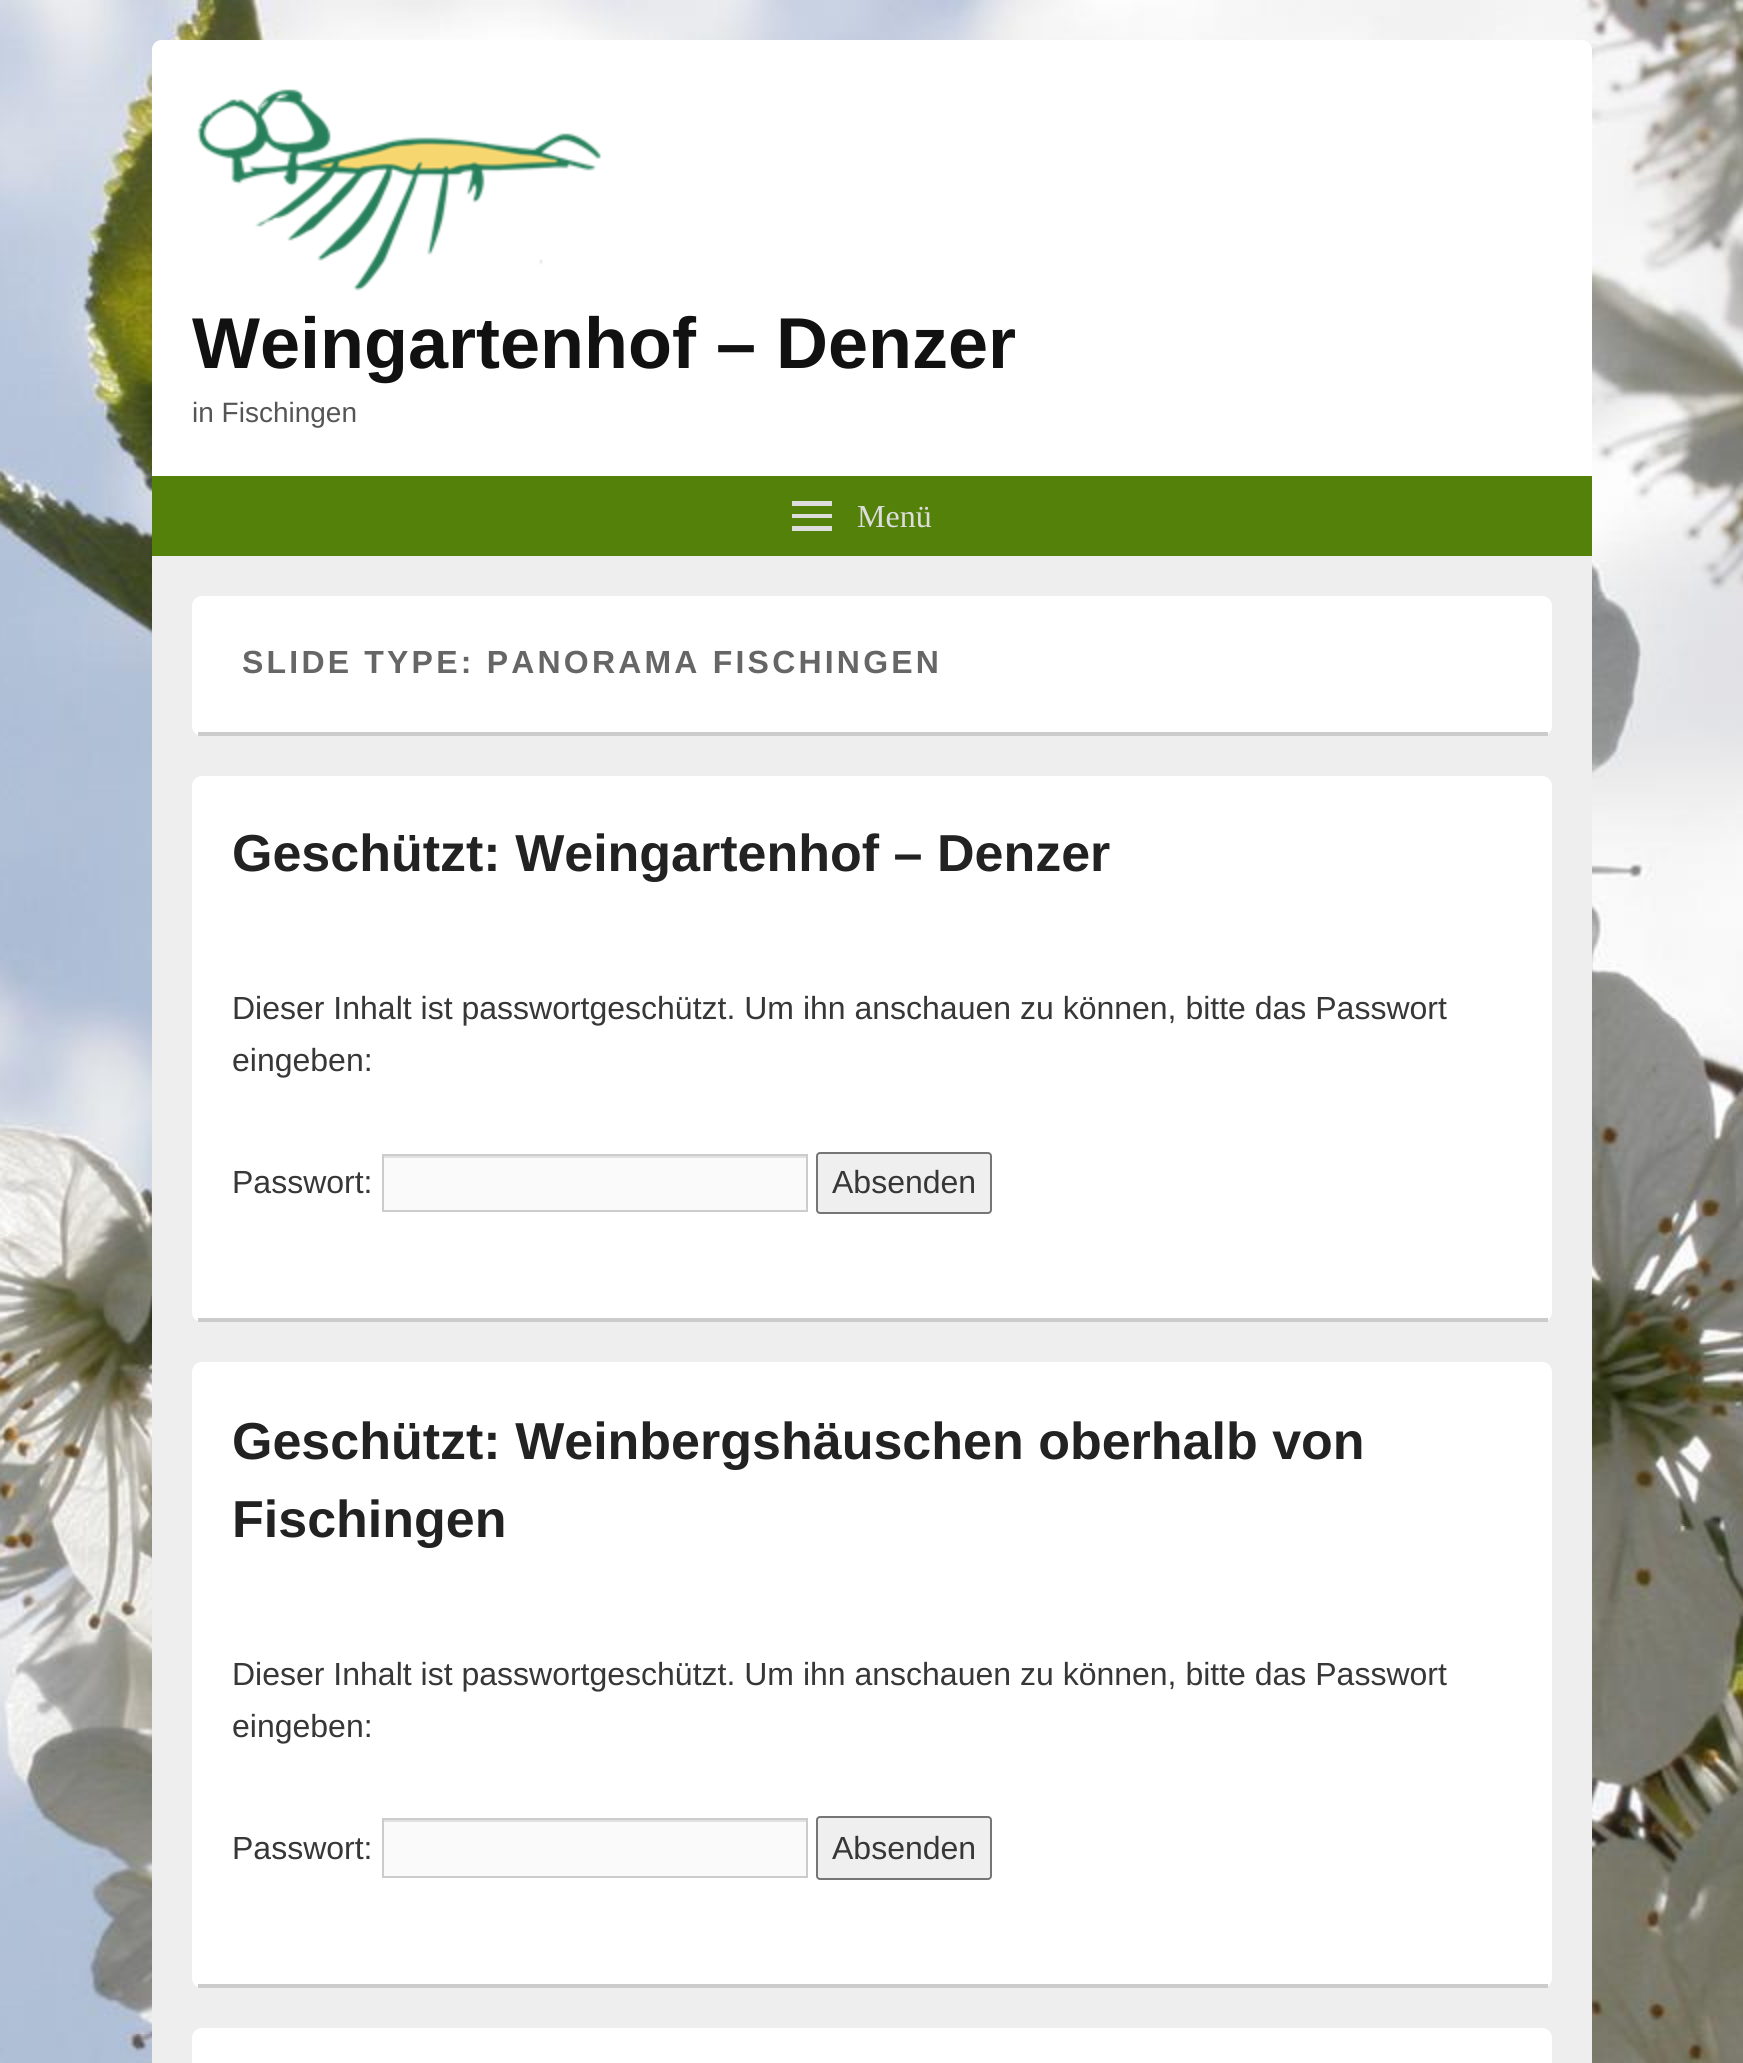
import math
import cairo

surface = cairo.ImageSurface(cairo.FORMAT_RGB24, 1743, 2063)
ctx = cairo.Context(surface)
options = cairo.FontOptions()
options.set_hint_metrics(cairo.HINT_METRICS_OFF)
options.set_hint_style(cairo.HINT_STYLE_NONE)
ctx.set_font_options(options)
ctx.set_miter_limit(4)


def set_color(code):
    ctx.set_source_rgb(*(v / 255 for v in bytes.fromhex(code[-6:])))


def draw_text(x, y, s, family, size, color, bold=False, italic=False):
    ctx.select_font_face(family, cairo.FONT_SLANT_ITALIC if italic else cairo.FONT_SLANT_NORMAL, cairo.FONT_WEIGHT_BOLD if bold else cairo.FONT_WEIGHT_NORMAL)
    ctx.set_font_size(size)
    set_color(color)
    ctx.move_to(x, y)
    ctx.show_text(s)


def draw_spaced(x, y, s, letter, word):
    ctx.move_to(x, y)
    for ch in s:
        ctx.show_text(ch)
        ctx.rel_move_to(letter + word * (ch == ' '), 0)


def fill_rect(x, y, w, h, color):
    set_color(color)
    ctx.rectangle(x, y, w, h)
    ctx.fill()


def rounded_rect(x, y, w, h, r):
    ctx.new_sub_path()
    for i, (u, v) in enumerate([(x + w - r, y + h - r), (x + r, y + h - r), (x + r, y + r), (x + w - r, y + r)]):
        ctx.arc(u, v, r, i * math.pi / 2, (i + 1) * math.pi / 2)
    ctx.close_path()


def draw_image(path, x, y, w, h):
    ctx.save()
    ctx.set_source_surface(cairo.ImageSurface.create_from_png(path), x, y)
    ctx.rectangle(x, y, w, h)
    ctx.fill()
    ctx.restore()


set_color("#ffffff")
ctx.paint()
draw_image("assets/img1.png", 0, 0, 1743, 2063)
set_color("#eeeeee")
rounded_rect(152, 40, 1440, 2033, 10)
ctx.fill()
set_color("#ffffff")
ctx.new_path()
ctx.move_to(162, 40)
ctx.line_to(1582, 40)
ctx.curve_to(1587.5, 40, 1592, 44.5, 1592, 50)
ctx.line_to(1592, 556)
ctx.line_to(152, 556)
ctx.line_to(152, 50)
ctx.curve_to(152, 44.5, 156.5, 40, 162, 40)
ctx.close_path()
ctx.fill()
draw_image("assets/img2.png", 197, 89, 405, 202)
draw_text(192, 368, "Weingartenhof – Denzer", "Liberation Sans", 72, "#111111", bold=True)
draw_text(192, 422, "in Fischingen", "Liberation Sans", 28, "#555555")
fill_rect(152, 476, 1440, 80, "#53810a")
set_color("#dddddd")
ctx.new_path()
ctx.move_to(792, 531)
ctx.line_to(792, 526)
ctx.line_to(832, 526)
ctx.line_to(832, 531)
ctx.close_path()
ctx.move_to(792, 501)
ctx.line_to(832, 501)
ctx.line_to(832, 506)
ctx.line_to(792, 506)
ctx.close_path()
ctx.move_to(792, 518)
ctx.line_to(792, 514)
ctx.line_to(832, 514)
ctx.line_to(832, 518)
ctx.close_path()
ctx.fill()
draw_text(857, 527, "Menü", "Liberation Serif", 32, "#dddddd")
set_color("#ffffff")
rounded_rect(192, 596, 1360, 140, 10)
ctx.fill()
fill_rect(198, 732, 1350, 4, "#cccccc")
ctx.select_font_face("Liberation Sans", cairo.FONT_SLANT_NORMAL, cairo.FONT_WEIGHT_BOLD)
set_color("#666666")
draw_spaced(242, 673, "SLIDE TYPE: PANORAMA FISCHINGEN", 3.2, 0)
set_color("#ffffff")
rounded_rect(192, 776, 1360, 546, 10)
ctx.fill()
fill_rect(198, 1318, 1350, 4, "#cccccc")
draw_text(232, 871, "Geschützt: Weingartenhof – Denzer", "Liberation Sans", 52, "#222222", bold=True)
draw_text(232, 1019, "Dieser Inhalt ist passwortgeschützt. Um ihn anschauen zu können, bitte das Passwort", "Liberation Sans", 32, "#373737")
draw_text(232, 1071, "eingeben:", "Liberation Sans", 32, "#373737")
draw_text(232, 1193, "Passwort:", "Liberation Sans", 32, "#373737")
fill_rect(384, 1158, 422, 52, "#fafafa")
fill_rect(384, 1156, 422, 2, "#e1e1e1")
ctx.rectangle(383, 1155, 424, 56)
set_color("#cccccc")
ctx.stroke()
set_color("#efefef")
rounded_rect(817, 1153, 174, 60, 3)
ctx.fill_preserve()
set_color("#767676")
ctx.stroke()
draw_text(832, 1193, "Absenden", "Liberation Sans", 32, "#373737")
set_color("#ffffff")
rounded_rect(192, 1362, 1360, 626, 10)
ctx.fill()
fill_rect(198, 1984, 1350, 4, "#cccccc")
draw_text(232, 1459, "Geschützt: Weinbergshäuschen oberhalb von", "Liberation Sans", 52, "#222222", bold=True)
draw_text(232, 1537, "Fischingen", "Liberation Sans", 52, "#222222", bold=True)
draw_text(232, 1685, "Dieser Inhalt ist passwortgeschützt. Um ihn anschauen zu können, bitte das Passwort", "Liberation Sans", 32, "#373737")
draw_text(232, 1737, "eingeben:", "Liberation Sans", 32, "#373737")
draw_text(232, 1859, "Passwort:", "Liberation Sans", 32, "#373737")
fill_rect(384, 1822, 422, 54, "#fafafa")
fill_rect(384, 1820, 422, 2, "#e1e1e1")
ctx.rectangle(383, 1819, 424, 58)
set_color("#cccccc")
ctx.stroke()
set_color("#efefef")
rounded_rect(817, 1817, 174, 62, 3)
ctx.fill_preserve()
set_color("#767676")
ctx.stroke()
draw_text(832, 1859, "Absenden", "Liberation Sans", 32, "#373737")
set_color("#ffffff")
rounded_rect(192, 2028, 1360, 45, 10)
ctx.fill()
surface.write_to_png("output.png")
